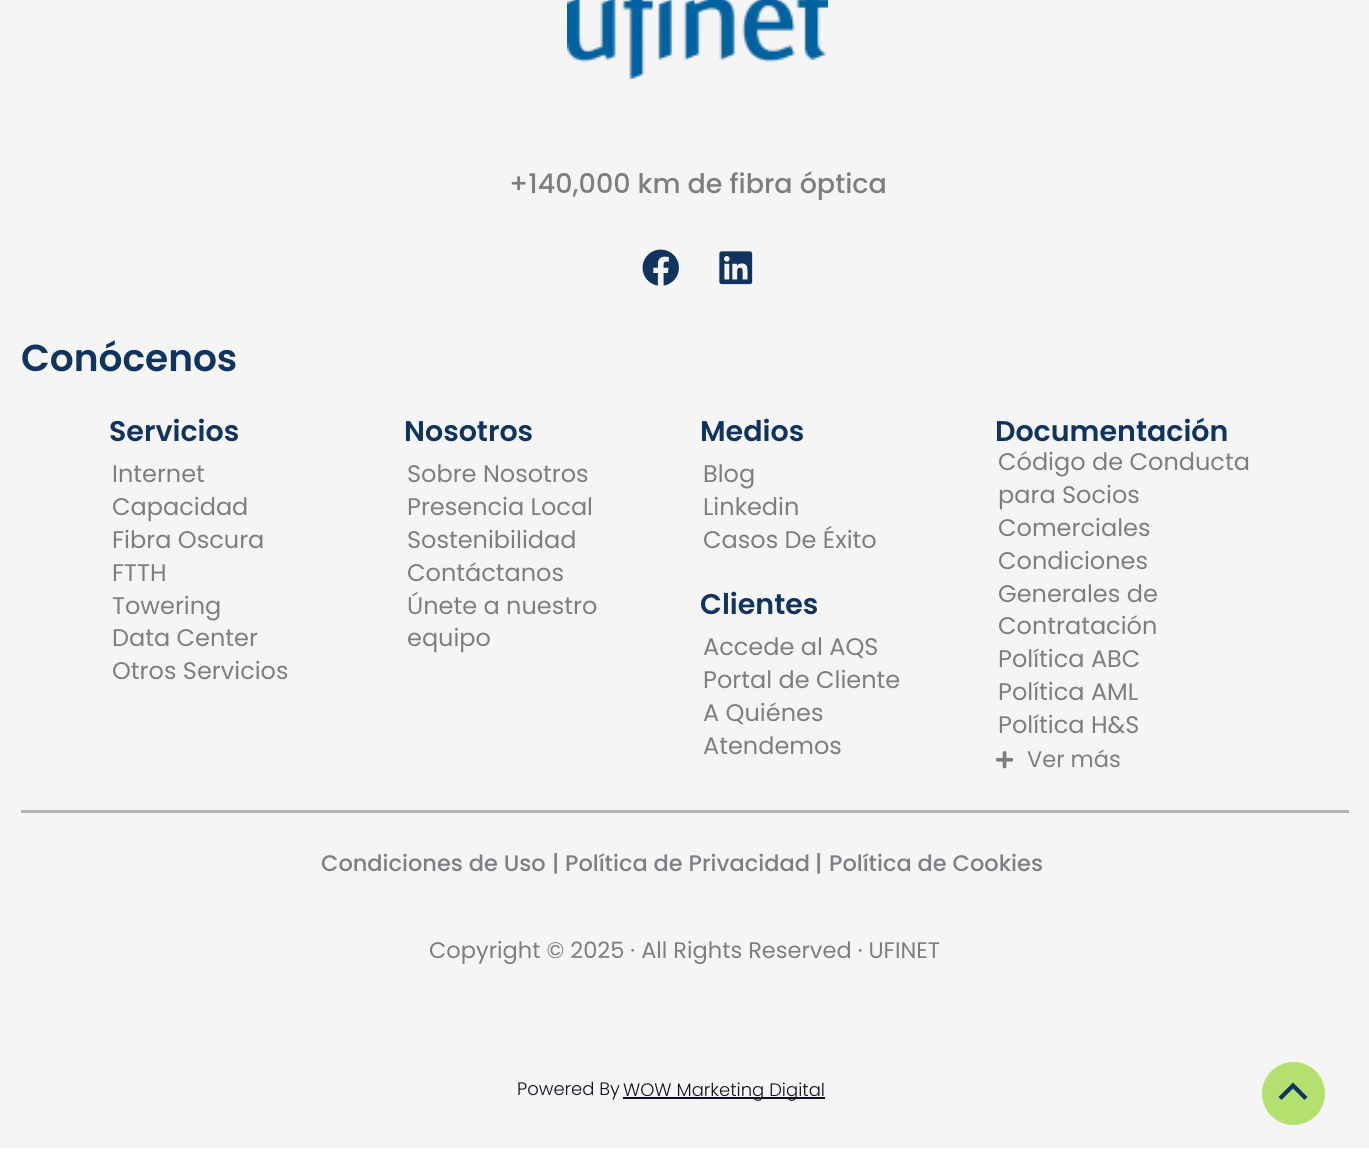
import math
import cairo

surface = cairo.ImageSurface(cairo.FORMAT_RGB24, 1369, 1170)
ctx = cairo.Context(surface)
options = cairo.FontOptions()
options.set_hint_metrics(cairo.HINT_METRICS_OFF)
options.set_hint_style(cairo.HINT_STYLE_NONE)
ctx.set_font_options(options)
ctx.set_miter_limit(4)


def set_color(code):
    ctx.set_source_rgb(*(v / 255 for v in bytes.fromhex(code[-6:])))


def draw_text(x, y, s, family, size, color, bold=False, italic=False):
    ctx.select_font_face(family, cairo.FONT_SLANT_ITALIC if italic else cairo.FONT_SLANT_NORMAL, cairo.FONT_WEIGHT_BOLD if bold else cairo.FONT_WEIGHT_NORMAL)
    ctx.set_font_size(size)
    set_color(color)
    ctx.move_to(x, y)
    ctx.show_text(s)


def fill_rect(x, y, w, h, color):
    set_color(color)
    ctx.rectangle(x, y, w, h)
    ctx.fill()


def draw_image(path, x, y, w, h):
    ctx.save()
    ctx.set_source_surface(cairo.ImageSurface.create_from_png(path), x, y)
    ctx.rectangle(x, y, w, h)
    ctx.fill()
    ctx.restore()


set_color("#ffffff")
ctx.paint()
fill_rect(0, 0, 1369, 1148, "#f5f5f5")
draw_image("assets/img1.png", 567, 0, 261, 81)
draw_text(509, 193, "+140,000 km de fibra óptica", "Poppins Medium", 27, "#7e7e7e")
draw_image("assets/img2.png", 642, 249, 37, 37)
draw_image("assets/img3.png", 719, 251, 34, 34)
draw_text(21, 371, "Conócenos", "Poppins SemiBold", 37.5, "#10345e")
draw_text(109, 441, "Servicios", "Poppins SemiBold", 28.5, "#10345e")
draw_text(112, 482, "Internet", "Poppins", 24, "#7e7e7e")
draw_text(112, 515, "Capacidad", "Poppins", 24, "#7e7e7e")
draw_text(112, 548, "Fibra Oscura", "Poppins", 24, "#7e7e7e")
draw_text(112, 581, "FTTH", "Poppins", 24, "#7e7e7e")
draw_text(112, 614, "Towering", "Poppins", 24, "#7e7e7e")
draw_text(112, 646, "Data Center", "Poppins", 24, "#7e7e7e")
draw_text(112, 679, "Otros Servicios", "Poppins", 24, "#7e7e7e")
draw_text(404, 441, "Nosotros", "Poppins SemiBold", 28.5, "#10345e")
draw_text(407, 482, "Sobre Nosotros", "Poppins", 24, "#7e7e7e")
draw_text(407, 515, "Presencia Local", "Poppins", 24, "#7e7e7e")
draw_text(407, 548, "Sostenibilidad", "Poppins", 24, "#7e7e7e")
draw_text(407, 581, "Contáctanos", "Poppins", 24, "#7e7e7e")
draw_text(407, 614, "Únete a nuestro", "Poppins", 24, "#7e7e7e")
draw_text(407, 646, "equipo", "Poppins", 24, "#7e7e7e")
draw_text(700, 441, "Medios", "Poppins SemiBold", 28.5, "#10345e")
draw_text(703, 482, "Blog", "Poppins", 24, "#7e7e7e")
draw_text(703, 515, "Linkedin", "Poppins", 24, "#7e7e7e")
draw_text(703, 548, "Casos De Éxito", "Poppins", 24, "#7e7e7e")
draw_text(700, 614, "Clientes", "Poppins SemiBold", 28.5, "#10345e")
draw_text(703, 655, "Accede al AQS", "Poppins", 24, "#7e7e7e")
draw_text(703, 688, "Portal de Cliente", "Poppins", 24, "#7e7e7e")
draw_text(703, 721, "A Quiénes", "Poppins", 24, "#7e7e7e")
draw_text(703, 754, "Atendemos", "Poppins", 24, "#7e7e7e")
draw_text(995, 441, "Documentación", "Poppins SemiBold", 28.5, "#10345e")
draw_text(998, 470, "Código de Conducta", "Poppins", 24, "#7e7e7e")
draw_text(998, 503, "para Socios", "Poppins", 24, "#7e7e7e")
draw_text(998, 536, "Comerciales", "Poppins", 24, "#7e7e7e")
draw_text(998, 569, "Condiciones", "Poppins", 24, "#7e7e7e")
draw_text(998, 602, "Generales de", "Poppins", 24, "#7e7e7e")
draw_text(998, 634, "Contratación", "Poppins", 24, "#7e7e7e")
draw_text(998, 667, "Política ABC", "Poppins", 24, "#7e7e7e")
draw_text(998, 700, "Política AML", "Poppins", 24, "#7e7e7e")
draw_text(998, 733, "Política H&S", "Poppins", 24, "#7e7e7e")
draw_image("assets/img4.png", 996, 751, 17, 18)
draw_text(1027, 767, "Ver más", "Poppins", 22.5, "#7e7e7e")
fill_rect(21, 810, 1328, 3, "#b4b4b4")
draw_text(321, 871, "Condiciones de Uso", "Poppins Medium", 22.5, "#7e7e85")
draw_text(552, 871, "|", "Poppins Medium", 22.5, "#7e7e7e")
draw_text(565, 871, "Política de Privacidad", "Poppins Medium", 22.5, "#7e7e85")
draw_text(815, 871, "|", "Poppins Medium", 22.5, "#7e7e7e")
draw_text(829, 871, "Política de Cookies", "Poppins Medium", 22.5, "#7e7e85")
draw_text(429, 958, "Copyright © 2025 · All Rights Reserved · UFINET", "Poppins", 22.5, "#7e7e7e")
draw_text(517, 1095, "Powered By", "Poppins Light", 18, "#150e1f")
fill_rect(623, 1097, 202, 2, "#150e1f")
draw_text(623, 1096, "WOW Marketing Digital", "Poppins Light", 18, "#150e1f")
set_color("#b4e06f")
ctx.new_path()
ctx.arc(1293.5, 1093.5, 31.5, 0, 2 * math.pi)
ctx.fill()
set_color("#10345e")
ctx.new_path()
ctx.move_to(1307.5, 1097)
ctx.line_to(1293, 1082.5)
ctx.line_to(1278.5, 1097)
ctx.line_to(1281.5, 1100)
ctx.line_to(1293, 1088.5)
ctx.line_to(1304.5, 1100)
ctx.close_path()
ctx.fill()
surface.write_to_png("output.png")
